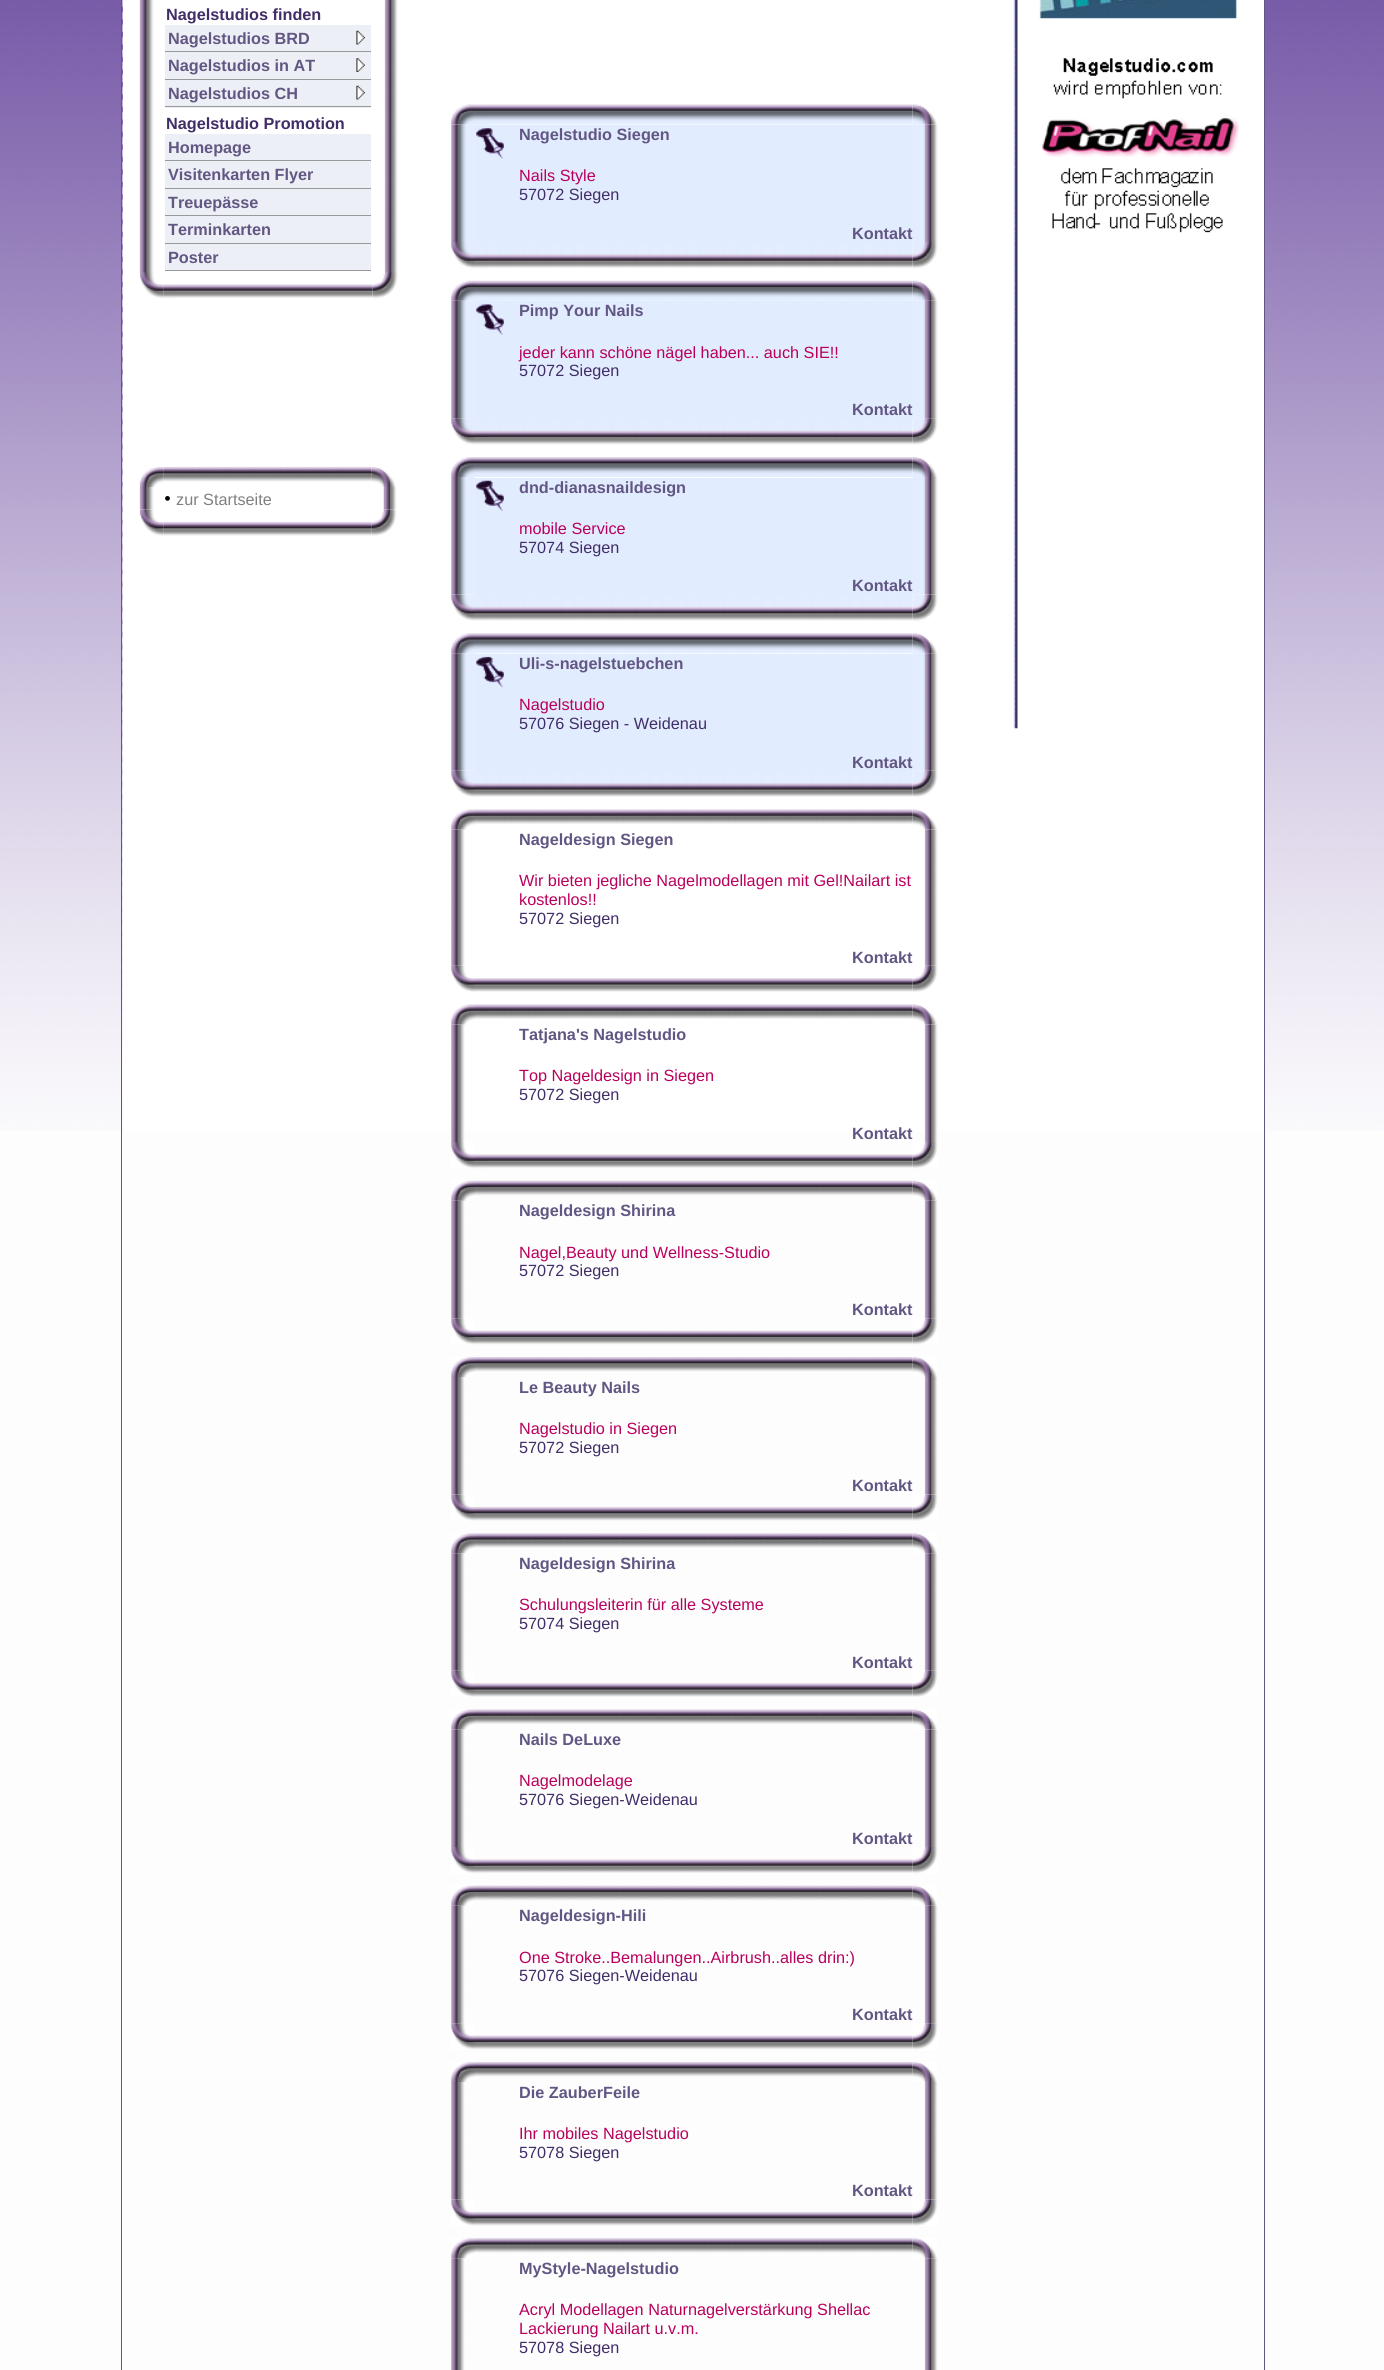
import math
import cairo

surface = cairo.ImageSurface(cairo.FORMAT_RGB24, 1384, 2370)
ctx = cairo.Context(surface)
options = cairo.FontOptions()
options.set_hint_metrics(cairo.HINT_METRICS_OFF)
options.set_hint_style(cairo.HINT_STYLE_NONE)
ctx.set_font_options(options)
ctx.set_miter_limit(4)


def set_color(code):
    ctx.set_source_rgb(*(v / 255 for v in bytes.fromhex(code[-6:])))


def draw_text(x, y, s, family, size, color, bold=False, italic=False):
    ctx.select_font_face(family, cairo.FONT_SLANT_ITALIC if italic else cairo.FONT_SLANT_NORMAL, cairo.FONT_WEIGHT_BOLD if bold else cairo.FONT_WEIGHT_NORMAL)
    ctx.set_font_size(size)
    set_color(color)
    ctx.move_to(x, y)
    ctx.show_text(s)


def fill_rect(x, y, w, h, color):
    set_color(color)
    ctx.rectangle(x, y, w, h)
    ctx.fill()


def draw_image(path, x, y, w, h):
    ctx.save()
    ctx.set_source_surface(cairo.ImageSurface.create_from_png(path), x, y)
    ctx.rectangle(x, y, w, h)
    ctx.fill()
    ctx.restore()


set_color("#fdfdfe")
ctx.paint()
draw_image("assets/img1.png", 0, 0, 1384, 1131)
fill_rect(1264, 0, 1, 2370, "#625683")
fill_rect(121, 0, 1, 2370, "#625683")
fill_rect(123, 0, 1141, 1131, "#ffffff")
draw_image("assets/img2.png", 122, 0, 1, 1101)
draw_image("assets/img3.png", 139, 0, 15, 272)
draw_text(166, 20, "Nagelstudios finden", "Liberation Sans", 16.25, "#412d68", bold=True)
fill_rect(165, 25, 206, 54, "#eceff5")
draw_image("assets/img4.png", 356, 30, 9, 15)
fill_rect(165, 51, 206, 1, "#999999")
draw_text(168, 44, "Nagelstudios BRD", "Liberation Sans", 16.25, "#625683", bold=True)
draw_image("assets/img5.png", 356, 58, 9, 14)
fill_rect(165, 79, 206, 1, "#999999")
draw_text(168, 71, "Nagelstudios in AT", "Liberation Sans", 16.25, "#625683", bold=True)
fill_rect(165, 80, 206, 28, "#eceff5")
draw_image("assets/img4.png", 356, 85, 9, 15)
fill_rect(165, 106, 206, 1, "#999999")
draw_text(168, 99, "Nagelstudios CH", "Liberation Sans", 16.25, "#625683", bold=True)
draw_text(166, 129, "Nagelstudio Promotion", "Liberation Sans", 16.25, "#412d68", bold=True)
fill_rect(165, 134, 206, 26, "#eceff5")
fill_rect(165, 160, 206, 1, "#999999")
draw_text(168, 153, "Homepage", "Liberation Sans", 16.25, "#625683", bold=True)
fill_rect(165, 161, 206, 27, "#eceff5")
fill_rect(165, 188, 206, 1, "#999999")
draw_text(168, 180, "Visitenkarten Flyer", "Liberation Sans", 16.25, "#625683", bold=True)
fill_rect(165, 189, 206, 26, "#eceff5")
fill_rect(165, 215, 206, 1, "#999999")
draw_text(168, 208, "Treuepässe", "Liberation Sans", 16.25, "#625683", bold=True)
fill_rect(165, 216, 206, 27, "#eceff5")
fill_rect(165, 243, 206, 1, "#999999")
draw_text(168, 235, "Terminkarten", "Liberation Sans", 16.25, "#625683", bold=True)
fill_rect(165, 244, 206, 26, "#eceff5")
fill_rect(165, 270, 206, 1, "#999999")
draw_text(168, 263, "Poster", "Liberation Sans", 16.25, "#625683", bold=True)
draw_image("assets/img6.png", 384, 0, 14, 272)
draw_image("assets/img8.png", 163, 284, 210, 14)
draw_image("assets/img7.png", 139, 272, 25, 27)
draw_image("assets/img9.png", 163, 286, 13, 13)
draw_image("assets/img10.png", 372, 272, 26, 27)
draw_image("assets/img12.png", 163, 466, 209, 16)
draw_image("assets/img11.png", 139, 467, 25, 20)
draw_image("assets/img13.png", 163, 469, 1, 9)
draw_image("assets/img14.png", 371, 467, 25, 20)
draw_image("assets/img15.png", 139, 487, 15, 23)
draw_text(164, 505, "•", "Liberation Serif", 20, "#000000")
draw_text(176, 505, "zur Startseite", "Liberation Sans", 16.25, "#808080")
draw_image("assets/img16.png", 383, 487, 14, 23)
draw_image("assets/img18.png", 163, 521, 209, 15)
draw_image("assets/img17.png", 139, 509, 25, 27)
draw_image("assets/img19.png", 163, 524, 1, 9)
draw_image("assets/img20.png", 371, 509, 26, 27)
draw_image("assets/img25.png", 451, 124, 24, 118)
draw_image("assets/img21.png", 451, 104, 24, 21)
draw_image("assets/img22.png", 475, 104, 438, 21)
draw_image("assets/img23.png", 475, 110, 12, 15)
fill_rect(475, 125, 438, 118, "#e2ecff")
draw_image("assets/img27.png", 912, 124, 26, 118)
draw_image("assets/img24.png", 912, 104, 25, 21)
draw_image("assets/img26.png", 476, 128, 28, 31)
draw_text(519, 140, "Nagelstudio Siegen", "Liberation Sans", 16.25, "#625683", bold=True)
draw_text(519, 181, "Nails Style", "Liberation Sans", 16.25, "#b9005c")
draw_text(519, 200, "57072 Siegen", "Liberation Sans", 16.25, "#412d68")
draw_text(852, 239, "Kontakt", "Liberation Sans", 16.25, "#625683", bold=True)
draw_image("assets/img28.png", 451, 242, 24, 27)
draw_image("assets/img29.png", 475, 243, 438, 25)
draw_image("assets/img30.png", 475, 260, 12, 9)
draw_image("assets/img31.png", 912, 242, 26, 27)
draw_image("assets/img35.png", 451, 300, 24, 119)
draw_image("assets/img32.png", 451, 280, 24, 21)
draw_image("assets/img33.png", 475, 280, 438, 21)
fill_rect(475, 300, 12, 1, "#e4edff")
draw_image("assets/img37.png", 913, 300, 25, 119)
draw_image("assets/img34.png", 912, 280, 25, 21)
fill_rect(475, 301, 438, 118, "#e2ecff")
draw_image("assets/img36.png", 476, 304, 28, 31)
draw_text(519, 316, "Pimp Your Nails", "Liberation Sans", 16.25, "#625683", bold=True)
draw_text(519, 358, "jeder kann schöne nägel haben... auch SIE!!", "Liberation Sans", 16.25, "#b9005c")
draw_text(519, 376, "57072 Siegen", "Liberation Sans", 16.25, "#412d68")
draw_text(852, 415, "Kontakt", "Liberation Sans", 16.25, "#625683", bold=True)
draw_image("assets/img38.png", 451, 418, 24, 27)
draw_image("assets/img39.png", 475, 419, 438, 26)
fill_rect(475, 436, 12, 1, "#2d2631")
draw_image("assets/img40.png", 912, 418, 26, 27)
draw_image("assets/img41.png", 451, 457, 24, 20)
draw_image("assets/img42.png", 475, 457, 438, 20)
draw_image("assets/img43.png", 912, 457, 25, 20)
draw_image("assets/img44.png", 451, 477, 24, 118)
fill_rect(475, 478, 438, 117, "#e2ecff")
draw_image("assets/img45.png", 476, 480, 28, 31)
draw_text(519, 493, "dnd-dianasnaildesign", "Liberation Sans", 16.25, "#625683", bold=True)
draw_text(519, 534, "mobile Service", "Liberation Sans", 16.25, "#b9005c")
draw_text(519, 553, "57074 Siegen", "Liberation Sans", 16.25, "#412d68")
draw_image("assets/img46.png", 912, 477, 26, 118)
draw_text(852, 591, "Kontakt", "Liberation Sans", 16.25, "#625683", bold=True)
draw_image("assets/img47.png", 451, 594, 24, 27)
draw_image("assets/img48.png", 475, 595, 438, 26)
draw_image("assets/img49.png", 912, 594, 26, 27)
draw_image("assets/img54.png", 451, 653, 24, 118)
draw_image("assets/img50.png", 451, 633, 24, 21)
draw_image("assets/img51.png", 475, 633, 438, 21)
draw_image("assets/img52.png", 475, 653, 12, 1)
fill_rect(475, 654, 438, 117, "#e2ecff")
draw_image("assets/img56.png", 912, 653, 26, 118)
draw_image("assets/img53.png", 912, 633, 25, 21)
draw_image("assets/img55.png", 476, 656, 28, 32)
draw_text(519, 669, "Uli-s-nagelstuebchen", "Liberation Sans", 16.25, "#625683", bold=True)
draw_text(519, 710, "Nagelstudio", "Liberation Sans", 16.25, "#b9005c")
draw_text(519, 729, "57076 Siegen - Weidenau", "Liberation Sans", 16.25, "#412d68")
draw_text(852, 768, "Kontakt", "Liberation Sans", 16.25, "#625683", bold=True)
draw_image("assets/img57.png", 451, 770, 24, 27)
draw_image("assets/img58.png", 475, 771, 438, 26)
draw_image("assets/img59.png", 912, 770, 26, 27)
draw_image("assets/img63.png", 451, 829, 14, 137)
draw_image("assets/img60.png", 451, 809, 24, 21)
draw_image("assets/img61.png", 475, 809, 438, 15)
fill_rect(475, 815, 12, 1, "#3c373f")
draw_image("assets/img64.png", 924, 829, 14, 137)
draw_image("assets/img62.png", 912, 809, 25, 21)
draw_text(519, 845, "Nageldesign Siegen", "Liberation Sans", 16.25, "#625683", bold=True)
draw_text(519, 886, "Wir bieten jegliche Nagelmodellagen mit Gel!Nailart ist", "Liberation Sans", 16.25, "#b9005c")
draw_text(519, 905, "kostenlos!!", "Liberation Sans", 16.25, "#b9005c")
draw_text(519, 924, "57072 Siegen", "Liberation Sans", 16.25, "#412d68")
draw_text(852, 963, "Kontakt", "Liberation Sans", 16.25, "#625683", bold=True)
draw_image("assets/img65.png", 451, 965, 24, 27)
draw_image("assets/img66.png", 475, 978, 438, 14)
draw_image("assets/img67.png", 912, 965, 26, 27)
draw_image("assets/img69.png", 451, 1024, 14, 118)
draw_image("assets/img60.png", 451, 1004, 24, 21)
draw_image("assets/img68.png", 475, 1004, 438, 15)
fill_rect(475, 1010, 12, 1, "#3c373f")
draw_image("assets/img70.png", 924, 1024, 14, 118)
draw_image("assets/img62.png", 912, 1004, 25, 21)
draw_text(519, 1040, "Tatjana's Nagelstudio", "Liberation Sans", 16.25, "#625683", bold=True)
draw_text(519, 1081, "Top Nageldesign in Siegen", "Liberation Sans", 16.25, "#b9005c")
draw_text(519, 1100, "57072 Siegen", "Liberation Sans", 16.25, "#412d68")
draw_text(852, 1139, "Kontakt", "Liberation Sans", 16.25, "#625683", bold=True)
draw_image("assets/img71.png", 451, 1142, 24, 27)
draw_image("assets/img72.png", 475, 1154, 438, 14)
draw_image("assets/img73.png", 475, 1160, 12, 9)
draw_image("assets/img74.png", 912, 1142, 26, 27)
draw_image("assets/img78.png", 451, 1200, 14, 119)
draw_image("assets/img75.png", 451, 1180, 24, 21)
draw_image("assets/img76.png", 475, 1180, 438, 16)
fill_rect(478, 1186, 9, 1, "#2c2530")
draw_image("assets/img79.png", 924, 1200, 14, 119)
draw_image("assets/img77.png", 912, 1180, 25, 21)
draw_text(519, 1216, "Nageldesign Shirina", "Liberation Sans", 16.25, "#625683", bold=True)
draw_text(519, 1258, "Nagel,Beauty und Wellness-Studio", "Liberation Sans", 16.25, "#b9005c")
draw_text(519, 1276, "57072 Siegen", "Liberation Sans", 16.25, "#412d68")
draw_text(852, 1315, "Kontakt", "Liberation Sans", 16.25, "#625683", bold=True)
draw_image("assets/img80.png", 451, 1318, 24, 27)
draw_image("assets/img81.png", 475, 1330, 438, 15)
fill_rect(475, 1336, 12, 1, "#2d2631")
draw_image("assets/img82.png", 912, 1318, 26, 27)
draw_image("assets/img83.png", 451, 1357, 24, 20)
draw_image("assets/img84.png", 475, 1356, 438, 16)
draw_image("assets/img85.png", 912, 1357, 25, 20)
draw_image("assets/img86.png", 451, 1377, 14, 118)
draw_text(519, 1393, "Le Beauty Nails", "Liberation Sans", 16.25, "#625683", bold=True)
draw_text(519, 1434, "Nagelstudio in Siegen", "Liberation Sans", 16.25, "#b9005c")
draw_text(519, 1453, "57072 Siegen", "Liberation Sans", 16.25, "#412d68")
draw_text(852, 1491, "Kontakt", "Liberation Sans", 16.25, "#625683", bold=True)
draw_image("assets/img87.png", 924, 1377, 14, 118)
draw_image("assets/img88.png", 451, 1494, 24, 27)
draw_image("assets/img89.png", 475, 1506, 438, 15)
draw_image("assets/img90.png", 912, 1494, 26, 27)
draw_image("assets/img94.png", 451, 1553, 14, 118)
draw_image("assets/img91.png", 451, 1533, 24, 21)
draw_image("assets/img92.png", 475, 1533, 438, 15)
draw_image("assets/img95.png", 924, 1553, 14, 118)
draw_image("assets/img93.png", 912, 1533, 25, 21)
draw_text(519, 1569, "Nageldesign Shirina", "Liberation Sans", 16.25, "#625683", bold=True)
draw_text(519, 1610, "Schulungsleiterin für alle Systeme", "Liberation Sans", 16.25, "#b9005c")
draw_text(519, 1629, "57074 Siegen", "Liberation Sans", 16.25, "#412d68")
draw_text(852, 1668, "Kontakt", "Liberation Sans", 16.25, "#625683", bold=True)
draw_image("assets/img65.png", 451, 1670, 24, 27)
draw_image("assets/img96.png", 475, 1683, 438, 14)
draw_image("assets/img67.png", 912, 1670, 26, 27)
draw_image("assets/img98.png", 451, 1729, 14, 118)
draw_image("assets/img60.png", 451, 1709, 24, 21)
draw_image("assets/img97.png", 475, 1709, 438, 15)
fill_rect(475, 1715, 12, 1, "#3c373f")
draw_image("assets/img99.png", 924, 1729, 14, 118)
draw_image("assets/img62.png", 912, 1709, 25, 21)
draw_text(519, 1745, "Nails DeLuxe", "Liberation Sans", 16.25, "#625683", bold=True)
draw_text(519, 1786, "Nagelmodelage", "Liberation Sans", 16.25, "#b9005c")
draw_text(519, 1805, "57076 Siegen-Weidenau", "Liberation Sans", 16.25, "#412d68")
draw_text(852, 1844, "Kontakt", "Liberation Sans", 16.25, "#625683", bold=True)
draw_image("assets/img71.png", 451, 1847, 24, 27)
draw_image("assets/img100.png", 475, 1859, 438, 14)
draw_image("assets/img73.png", 475, 1865, 12, 9)
draw_image("assets/img74.png", 912, 1847, 26, 27)
draw_image("assets/img102.png", 451, 1905, 14, 119)
draw_image("assets/img75.png", 451, 1885, 24, 21)
draw_image("assets/img101.png", 475, 1885, 438, 16)
fill_rect(478, 1891, 9, 1, "#2c2530")
draw_image("assets/img103.png", 924, 1905, 14, 119)
draw_image("assets/img77.png", 912, 1885, 25, 21)
draw_text(519, 1921, "Nageldesign-Hili", "Liberation Sans", 16.25, "#625683", bold=True)
draw_text(519, 1963, "One Stroke..Bemalungen..Airbrush..alles drin:)", "Liberation Sans", 16.25, "#b9005c")
draw_text(519, 1981, "57076 Siegen-Weidenau", "Liberation Sans", 16.25, "#412d68")
draw_text(852, 2020, "Kontakt", "Liberation Sans", 16.25, "#625683", bold=True)
draw_image("assets/img80.png", 451, 2023, 24, 27)
draw_image("assets/img104.png", 475, 2035, 438, 15)
fill_rect(475, 2041, 12, 1, "#2d2631")
draw_image("assets/img82.png", 912, 2023, 26, 27)
draw_image("assets/img83.png", 451, 2062, 24, 20)
draw_image("assets/img105.png", 475, 2061, 438, 16)
draw_image("assets/img85.png", 912, 2062, 25, 20)
draw_image("assets/img106.png", 451, 2082, 14, 118)
draw_text(519, 2098, "Die ZauberFeile", "Liberation Sans", 16.25, "#625683", bold=True)
draw_text(519, 2139, "Ihr mobiles Nagelstudio", "Liberation Sans", 16.25, "#b9005c")
draw_text(519, 2158, "57078 Siegen", "Liberation Sans", 16.25, "#412d68")
draw_text(852, 2196, "Kontakt", "Liberation Sans", 16.25, "#625683", bold=True)
draw_image("assets/img107.png", 924, 2082, 14, 118)
draw_image("assets/img88.png", 451, 2199, 24, 27)
draw_image("assets/img108.png", 475, 2211, 438, 15)
draw_image("assets/img90.png", 912, 2199, 26, 27)
draw_image("assets/img110.png", 451, 2258, 14, 112)
draw_image("assets/img91.png", 451, 2238, 24, 21)
draw_image("assets/img109.png", 475, 2238, 438, 15)
draw_image("assets/img111.png", 924, 2258, 14, 112)
draw_image("assets/img93.png", 912, 2238, 25, 21)
draw_text(519, 2274, "MyStyle-Nagelstudio", "Liberation Sans", 16.25, "#625683", bold=True)
draw_text(519, 2315, "Acryl Modellagen Naturnagelverstärkung Shellac", "Liberation Sans", 16.25, "#b9005c")
draw_text(519, 2334, "Lackierung Nailart u.v.m.", "Liberation Sans", 16.25, "#b9005c")
draw_text(519, 2353, "57078 Siegen", "Liberation Sans", 16.25, "#412d68")
draw_image("assets/img112.png", 1013, 0, 5, 729)
draw_image("assets/img113.png", 1039, 0, 200, 19)
draw_image("assets/img114.png", 1042, 58, 197, 175)
surface.write_to_png("output.png")
